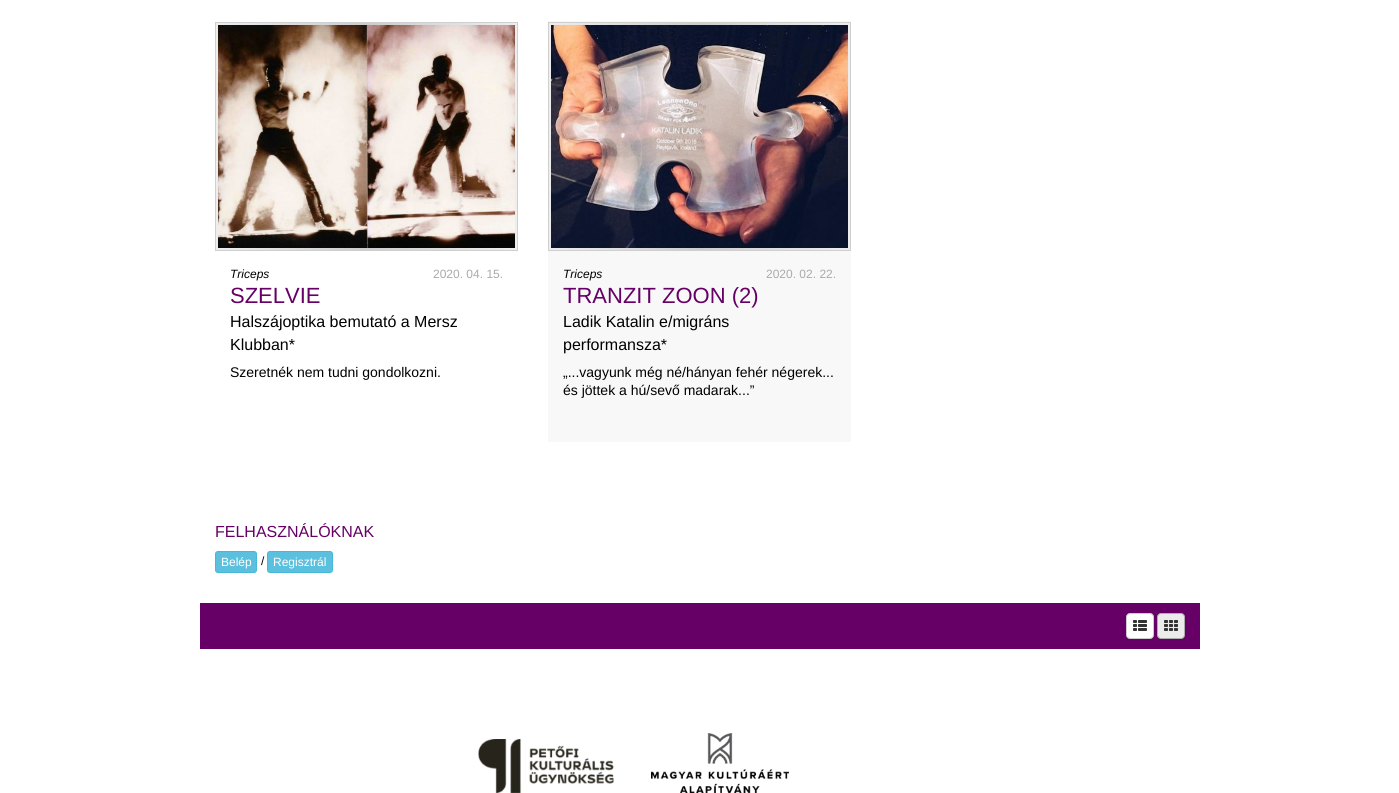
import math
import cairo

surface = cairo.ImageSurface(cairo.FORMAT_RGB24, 1399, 793)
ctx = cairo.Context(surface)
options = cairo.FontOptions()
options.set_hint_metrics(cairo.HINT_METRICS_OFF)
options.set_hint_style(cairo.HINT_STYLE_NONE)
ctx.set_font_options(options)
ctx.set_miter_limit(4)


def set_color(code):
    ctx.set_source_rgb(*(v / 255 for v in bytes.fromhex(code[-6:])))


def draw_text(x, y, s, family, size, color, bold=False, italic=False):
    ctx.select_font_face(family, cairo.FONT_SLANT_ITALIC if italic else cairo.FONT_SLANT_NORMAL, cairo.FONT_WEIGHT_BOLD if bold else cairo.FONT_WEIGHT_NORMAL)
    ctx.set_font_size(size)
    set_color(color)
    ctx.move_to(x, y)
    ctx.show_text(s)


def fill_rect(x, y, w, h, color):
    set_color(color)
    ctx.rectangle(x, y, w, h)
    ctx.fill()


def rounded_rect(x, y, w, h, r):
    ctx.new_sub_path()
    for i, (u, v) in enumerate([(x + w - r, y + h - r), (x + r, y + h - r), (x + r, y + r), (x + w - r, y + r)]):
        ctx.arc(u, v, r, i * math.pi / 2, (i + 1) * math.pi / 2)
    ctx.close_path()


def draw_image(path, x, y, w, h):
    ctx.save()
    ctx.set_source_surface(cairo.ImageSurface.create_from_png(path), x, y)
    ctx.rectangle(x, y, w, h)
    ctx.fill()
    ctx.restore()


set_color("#ffffff")
ctx.paint()
gradient = cairo.LinearGradient(215, 137, 518, 137)
gradient.add_color_stop_rgba(0, 0.933, 0.933, 0.933, 1)
gradient.add_color_stop_rgba(0.5, 0.8, 0.8, 0.8, 1)
gradient.add_color_stop_rgba(1, 0.933, 0.933, 0.933, 1)
ctx.set_source(gradient)
ctx.rectangle(216, 23, 301, 227)
ctx.fill()
ctx.rectangle(215.5, 22.5, 302, 228)
set_color("#cfcfcf")
ctx.set_line_width(1)
ctx.stroke()
draw_image("assets/img1.png", 218, 25, 297, 223)
draw_text(230, 278, "Triceps", "Liberation Sans", 12, "#000000", italic=True)
draw_text(433, 278, "2020. 04. 15.", "Liberation Sans", 12, "#aaaaaa")
draw_text(230, 303, "SZELVIE", "Liberation Sans", 22, "#660066")
draw_text(230, 327, "Halszájoptika bemutató a Mersz", "Liberation Sans", 16, "#000000")
draw_text(230, 350, "Klubban*", "Liberation Sans", 16, "#000000")
draw_text(230, 377, "Szeretnék nem tudni gondolkozni.", "Liberation Sans", 14, "#000000")
fill_rect(548, 21, 303, 421, "#f8f8f8")
gradient = cairo.LinearGradient(548, 137, 851, 137)
gradient.add_color_stop_rgba(0, 0.933, 0.933, 0.933, 1)
gradient.add_color_stop_rgba(0.5, 0.8, 0.8, 0.8, 1)
gradient.add_color_stop_rgba(1, 0.933, 0.933, 0.933, 1)
ctx.set_source(gradient)
ctx.rectangle(549, 23, 301, 227)
ctx.fill()
ctx.rectangle(548.5, 22.5, 302, 228)
set_color("#cfcfcf")
ctx.stroke()
draw_image("assets/img2.png", 551, 25, 297, 223)
draw_text(563, 278, "Triceps", "Liberation Sans", 12, "#000000", italic=True)
draw_text(766, 278, "2020. 02. 22.", "Liberation Sans", 12, "#aaaaaa")
draw_text(563, 303, "TRANZIT ZOON (2)", "Liberation Sans", 22, "#660066")
draw_text(563, 327, "Ladik Katalin e/migráns", "Liberation Sans", 16, "#000000")
draw_text(563, 350, "performansza*", "Liberation Sans", 16, "#000000")
draw_text(563, 377, "„...vagyunk még né/hányan fehér négerek...", "Liberation Sans", 14, "#000000")
draw_text(563, 395, "és jöttek a hú/sevő madarak...”", "Liberation Sans", 14, "#000000")
draw_text(215, 537, "FELHASZNÁLÓKNAK", "Liberation Sans", 16, "#660066")
set_color("#5bc0de")
rounded_rect(215.5, 551.5, 41, 21, 2.5)
ctx.fill_preserve()
set_color("#46b8da")
ctx.stroke()
draw_text(221, 566, "Belép", "Liberation Sans", 12, "#ffffff")
draw_text(261, 565, "/", "Liberation Sans", 12, "#000000")
set_color("#5bc0de")
rounded_rect(267.5, 551.5, 65, 21, 2.5)
ctx.fill_preserve()
set_color("#46b8da")
ctx.stroke()
draw_text(273, 566, "Regisztrál", "Liberation Sans", 12, "#ffffff")
fill_rect(200, 603, 1000, 46, "#660066")
set_color("#ffffff")
rounded_rect(1126.5, 613.5, 27, 25, 3.5)
ctx.fill_preserve()
set_color("#cccccc")
ctx.stroke()
draw_image("assets/img3.png", 1133, 620, 14, 11)
set_color("#ebebeb")
rounded_rect(1157.5, 613.5, 27, 25, 3.5)
ctx.fill_preserve()
set_color("#adadad")
ctx.stroke()
draw_image("assets/img4.png", 1164, 620, 14, 11)
draw_image("assets/img5.png", 478, 739, 136, 54)
draw_image("assets/img6.png", 651, 733, 138, 60)
surface.write_to_png("output.png")
